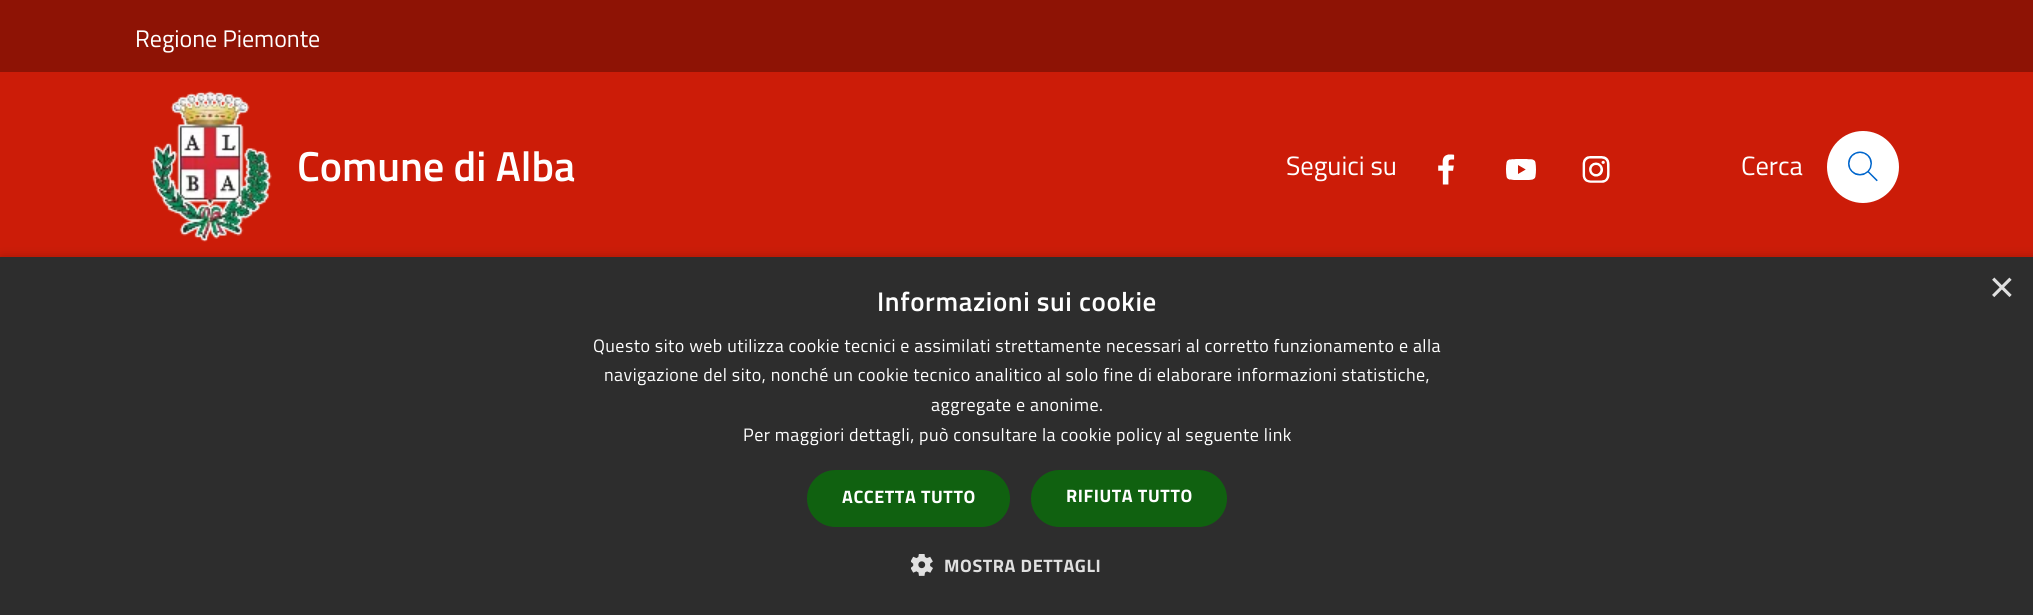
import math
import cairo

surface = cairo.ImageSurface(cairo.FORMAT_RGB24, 2033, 615)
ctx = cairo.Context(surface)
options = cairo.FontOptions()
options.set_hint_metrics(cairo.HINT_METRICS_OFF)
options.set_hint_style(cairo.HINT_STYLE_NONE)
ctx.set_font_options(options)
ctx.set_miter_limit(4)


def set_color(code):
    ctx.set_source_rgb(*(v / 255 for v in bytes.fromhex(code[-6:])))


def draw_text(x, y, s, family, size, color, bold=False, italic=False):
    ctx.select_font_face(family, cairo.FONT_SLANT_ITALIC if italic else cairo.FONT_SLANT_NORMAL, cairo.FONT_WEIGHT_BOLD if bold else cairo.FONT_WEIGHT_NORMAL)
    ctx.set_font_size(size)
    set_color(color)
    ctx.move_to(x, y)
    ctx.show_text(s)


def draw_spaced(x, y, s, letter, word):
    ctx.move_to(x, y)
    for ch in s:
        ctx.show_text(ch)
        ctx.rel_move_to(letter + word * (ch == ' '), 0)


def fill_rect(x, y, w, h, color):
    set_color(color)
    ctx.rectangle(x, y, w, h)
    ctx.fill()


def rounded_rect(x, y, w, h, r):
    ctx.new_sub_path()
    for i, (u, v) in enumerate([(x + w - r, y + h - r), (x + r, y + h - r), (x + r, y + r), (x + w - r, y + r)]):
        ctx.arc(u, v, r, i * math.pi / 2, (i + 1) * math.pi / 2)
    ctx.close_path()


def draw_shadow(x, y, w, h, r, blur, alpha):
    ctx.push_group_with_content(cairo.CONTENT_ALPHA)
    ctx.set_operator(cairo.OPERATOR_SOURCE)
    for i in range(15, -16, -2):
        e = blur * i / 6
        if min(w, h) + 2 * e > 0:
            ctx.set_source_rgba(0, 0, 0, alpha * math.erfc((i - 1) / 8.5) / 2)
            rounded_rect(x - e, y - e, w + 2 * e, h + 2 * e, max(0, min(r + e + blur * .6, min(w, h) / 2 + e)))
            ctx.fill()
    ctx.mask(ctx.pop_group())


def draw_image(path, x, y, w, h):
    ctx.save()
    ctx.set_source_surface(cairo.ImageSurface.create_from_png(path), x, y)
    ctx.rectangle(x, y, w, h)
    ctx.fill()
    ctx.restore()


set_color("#8e1305")
ctx.paint()
draw_text(135, 47, "Regione Piemonte", "Titillium Web", 24, "#ffffff")
fill_rect(0, 72, 2033, 185, "#cc1c08")
draw_image("assets/img1.png", 151, 91, 121, 151)
draw_text(297, 181, "Comune di Alba", "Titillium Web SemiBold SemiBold", 42, "#ffffff")
draw_text(1286, 175, "Seguici su", "Titillium Web", 26.5, "#ffffff")
draw_image("assets/img2.png", 1438, 154, 17, 31)
draw_image("assets/img3.png", 1506, 159, 30, 21)
draw_image("assets/img4.png", 1582, 156, 28, 27)
draw_text(1741, 175, "Cerca", "Titillium Web", 26.5, "#ffffff")
ctx.new_path()
ctx.arc(1863, 167, 36, 0, 2 * math.pi)
ctx.fill()
draw_image("assets/img5.png", 1848, 151, 30, 31)
set_color("#000000")
draw_shadow(2, 260, 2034, 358, 0, 6, 0.35)
fill_rect(0, 257, 2033, 358, "#2d2d2d")
draw_text(1989, 302, "×", "Liberation Sans", 44, "#e0e0e0")
ctx.select_font_face("Titillium Web SemiBold SemiBold")
ctx.set_font_size(27)
set_color("#ffffff")
draw_spaced(877, 311, "Informazioni sui cookie", 0.6, 0)
ctx.select_font_face("Titillium Web")
ctx.set_font_size(18)
draw_spaced(593, 352, "Questo sito web utilizza cookie tecnici e assimilati strettamente necessari al corretto funzionamento e alla", 0.45, 0)
draw_spaced(604, 381, "navigazione del sito, nonché un cookie tecnico analitico al solo fine di elaborare informazioni statistiche,", 0.45, 0)
draw_spaced(931, 411, "aggregate e anonime.", 0.45, 0)
draw_spaced(743, 441, "Per maggiori dettagli, può consultare la cookie policy al seguente link", 0.45, 0)
set_color("#106110")
rounded_rect(807, 470, 203, 57, 28.5)
ctx.fill()
ctx.select_font_face("Titillium Web", cairo.FONT_SLANT_NORMAL, cairo.FONT_WEIGHT_BOLD)
set_color("#ffffff")
draw_spaced(842, 503, "ACCETTA TUTTO", 0.6, 0)
set_color("#106110")
rounded_rect(1031, 470, 196, 57, 28.5)
ctx.fill()
set_color("#ffffff")
draw_spaced(1066, 502, "RIFIUTA TUTTO", 0.6, 0)
draw_image("assets/img6.png", 911, 554, 22, 22)
set_color("#e0e0e0")
draw_spaced(944, 572, "MOSTRA DETTAGLI", 0.6, 0)
surface.write_to_png("output.png")
